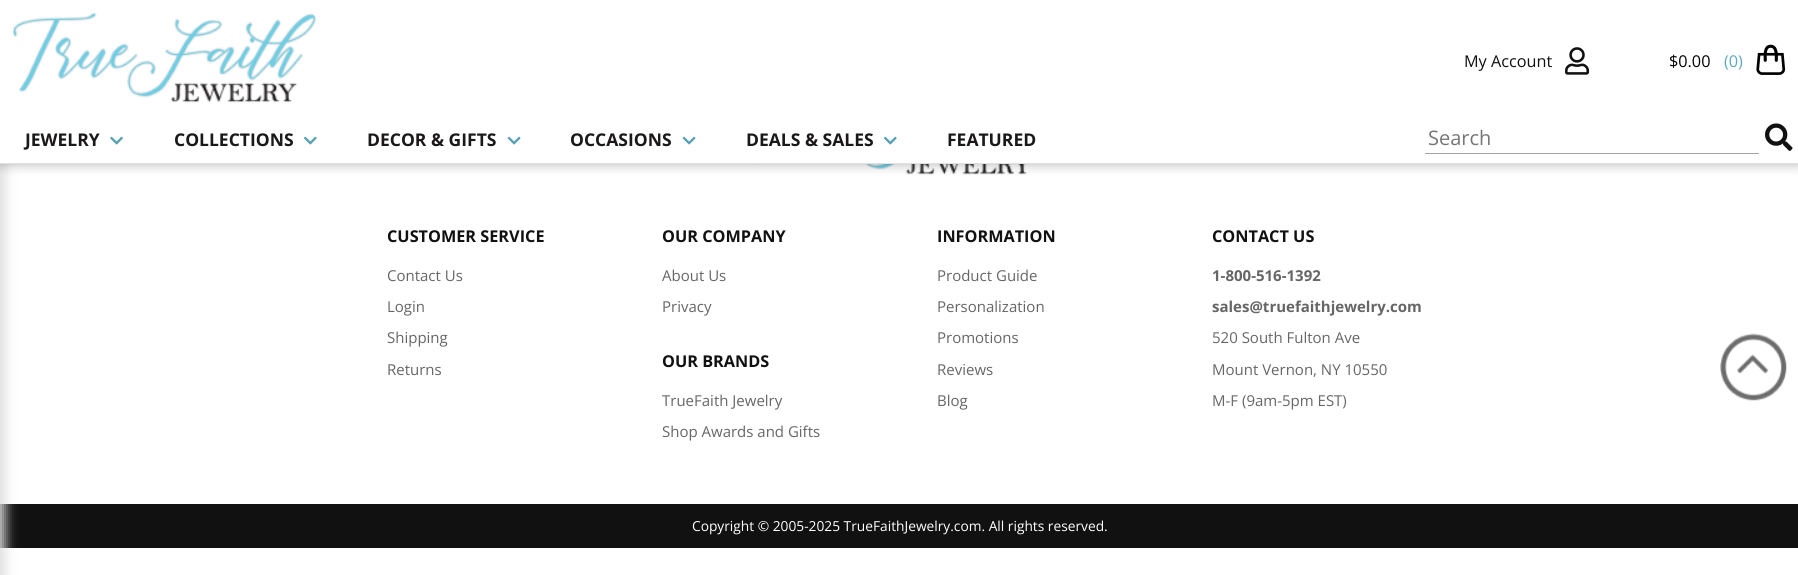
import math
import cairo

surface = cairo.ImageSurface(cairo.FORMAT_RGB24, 1798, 575)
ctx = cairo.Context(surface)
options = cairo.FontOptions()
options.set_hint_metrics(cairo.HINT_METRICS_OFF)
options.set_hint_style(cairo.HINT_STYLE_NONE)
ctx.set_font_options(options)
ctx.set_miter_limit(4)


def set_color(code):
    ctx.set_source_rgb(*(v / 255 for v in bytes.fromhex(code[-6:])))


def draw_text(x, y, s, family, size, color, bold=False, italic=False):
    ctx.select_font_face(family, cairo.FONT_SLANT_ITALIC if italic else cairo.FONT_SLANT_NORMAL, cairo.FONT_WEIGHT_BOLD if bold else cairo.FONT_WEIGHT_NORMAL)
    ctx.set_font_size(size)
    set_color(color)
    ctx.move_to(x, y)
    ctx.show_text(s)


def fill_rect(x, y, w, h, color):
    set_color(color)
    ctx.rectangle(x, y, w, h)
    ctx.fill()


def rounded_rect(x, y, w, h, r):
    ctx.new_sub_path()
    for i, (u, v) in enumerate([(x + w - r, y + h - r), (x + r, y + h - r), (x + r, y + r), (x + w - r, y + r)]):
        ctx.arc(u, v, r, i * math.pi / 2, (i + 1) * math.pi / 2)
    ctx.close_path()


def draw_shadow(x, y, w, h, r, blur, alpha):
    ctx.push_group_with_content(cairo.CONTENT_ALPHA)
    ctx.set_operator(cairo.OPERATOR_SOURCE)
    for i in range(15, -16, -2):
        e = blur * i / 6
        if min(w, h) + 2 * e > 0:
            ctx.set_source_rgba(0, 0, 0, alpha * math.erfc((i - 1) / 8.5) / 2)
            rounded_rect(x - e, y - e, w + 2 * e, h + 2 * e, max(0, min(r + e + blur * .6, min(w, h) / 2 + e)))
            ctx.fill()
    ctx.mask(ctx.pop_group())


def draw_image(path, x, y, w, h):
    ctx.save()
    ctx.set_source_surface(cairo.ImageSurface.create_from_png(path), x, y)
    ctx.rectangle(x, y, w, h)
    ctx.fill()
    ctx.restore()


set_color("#ffffff")
ctx.paint()
fill_rect(0, 504, 1798, 44, "#111111")
set_color("#dddddd")
draw_shadow(-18, 8, 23, 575, 0, 6, 1)
draw_image("assets/img8.png", 755, 164, 272, 11)
set_color("#000000")
draw_shadow(0, 0, 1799, 164, 0, 6, 0.3)
fill_rect(0, 0, 1798, 163, "#ffffff")
fill_rect(0, 163, 1798, 1, "#e1e1e1")
draw_image("assets/img1.png", 12, 12, 305, 91)
draw_text(1464, 67, "My Account", "Open Sans", 16.25, "#111111")
draw_image("assets/img2.png", 1565, 47, 25, 28)
draw_text(1669, 67, "$0.00", "Open Sans", 16.25, "#030303")
draw_text(1724, 67, "(0)", "Open Sans", 16.25, "#5ba9bc")
draw_image("assets/img3.png", 1756, 44, 30, 31)
draw_text(25, 146, "JEWELRY", "Open Sans", 17.5, "#1a1819", bold=True)
draw_image("assets/img4.png", 110, 136, 13, 9)
draw_text(174, 146, "COLLECTIONS", "Open Sans", 17.5, "#1a1819", bold=True)
draw_image("assets/img5.png", 304, 136, 13, 9)
draw_text(367, 146, "DECOR & GIFTS", "Open Sans", 17.5, "#1a1819", bold=True)
draw_image("assets/img6.png", 507, 136, 14, 9)
draw_text(570, 146, "OCCASIONS", "Open Sans", 17.5, "#1a1819", bold=True)
draw_image("assets/img6.png", 682, 136, 14, 9)
draw_text(746, 146, "DEALS & SALES", "Open Sans", 17.5, "#1a1819", bold=True)
draw_image("assets/img5.png", 884, 136, 13, 9)
draw_text(947, 146, "FEATURED", "Open Sans", 17.5, "#1a1819", bold=True)
fill_rect(1424, 153, 335, 1, "#a3a3a3")
fill_rect(1424, 153, 1, 1, "#ffffff")
draw_text(1428, 145, "Search", "Open Sans", 20, "#757575")
draw_image("assets/img7.png", 1765, 123, 28, 28)
draw_text(387, 242, "CUSTOMER SERVICE", "Open Sans", 16.25, "#111111", bold=True)
draw_text(387, 281, "Contact Us", "Open Sans", 15, "#666666")
draw_text(387, 312, "Login", "Open Sans", 15, "#666666")
draw_text(387, 343, "Shipping", "Open Sans", 15, "#666666")
draw_text(387, 375, "Returns", "Open Sans", 15, "#666666")
draw_text(662, 242, "OUR COMPANY", "Open Sans", 16.25, "#111111", bold=True)
draw_text(662, 281, "About Us", "Open Sans", 15, "#666666")
draw_text(662, 312, "Privacy", "Open Sans", 15, "#666666")
draw_text(662, 367, "OUR BRANDS", "Open Sans", 16.25, "#111111", bold=True)
draw_text(662, 406, "TrueFaith Jewelry", "Open Sans", 15, "#666666")
draw_text(662, 437, "Shop Awards and Gifts", "Open Sans", 15, "#666666")
draw_text(937, 242, "INFORMATION", "Open Sans", 16.25, "#111111", bold=True)
draw_text(937, 281, "Product Guide", "Open Sans", 15, "#666666")
draw_text(937, 312, "Personalization", "Open Sans", 15, "#666666")
draw_text(937, 343, "Promotions", "Open Sans", 15, "#666666")
draw_text(937, 375, "Reviews", "Open Sans", 15, "#666666")
draw_text(937, 406, "Blog", "Open Sans", 15, "#666666")
draw_text(1212, 242, "CONTACT US", "Open Sans", 16.25, "#111111", bold=True)
draw_text(1212, 281, "1-800-516-1392", "Open Sans", 15, "#666666", bold=True)
draw_text(1212, 312, "sales@truefaithjewelry.com", "Open Sans", 15, "#666666", bold=True)
draw_text(1212, 343, "520 South Fulton Ave", "Open Sans", 15, "#666666")
draw_text(1212, 375, "Mount Vernon, NY 10550", "Open Sans", 15, "#666666")
draw_text(1212, 406, "M-F (9am-5pm EST)", "Open Sans", 15, "#666666")
draw_text(692, 531, "Copyright © 2005-2025 TrueFaithJewelry.com. All rights reserved.", "Open Sans", 13.75, "#ffffff")
draw_image("assets/img9.png", 1720, 333, 67, 68)
surface.write_to_png("output.png")
